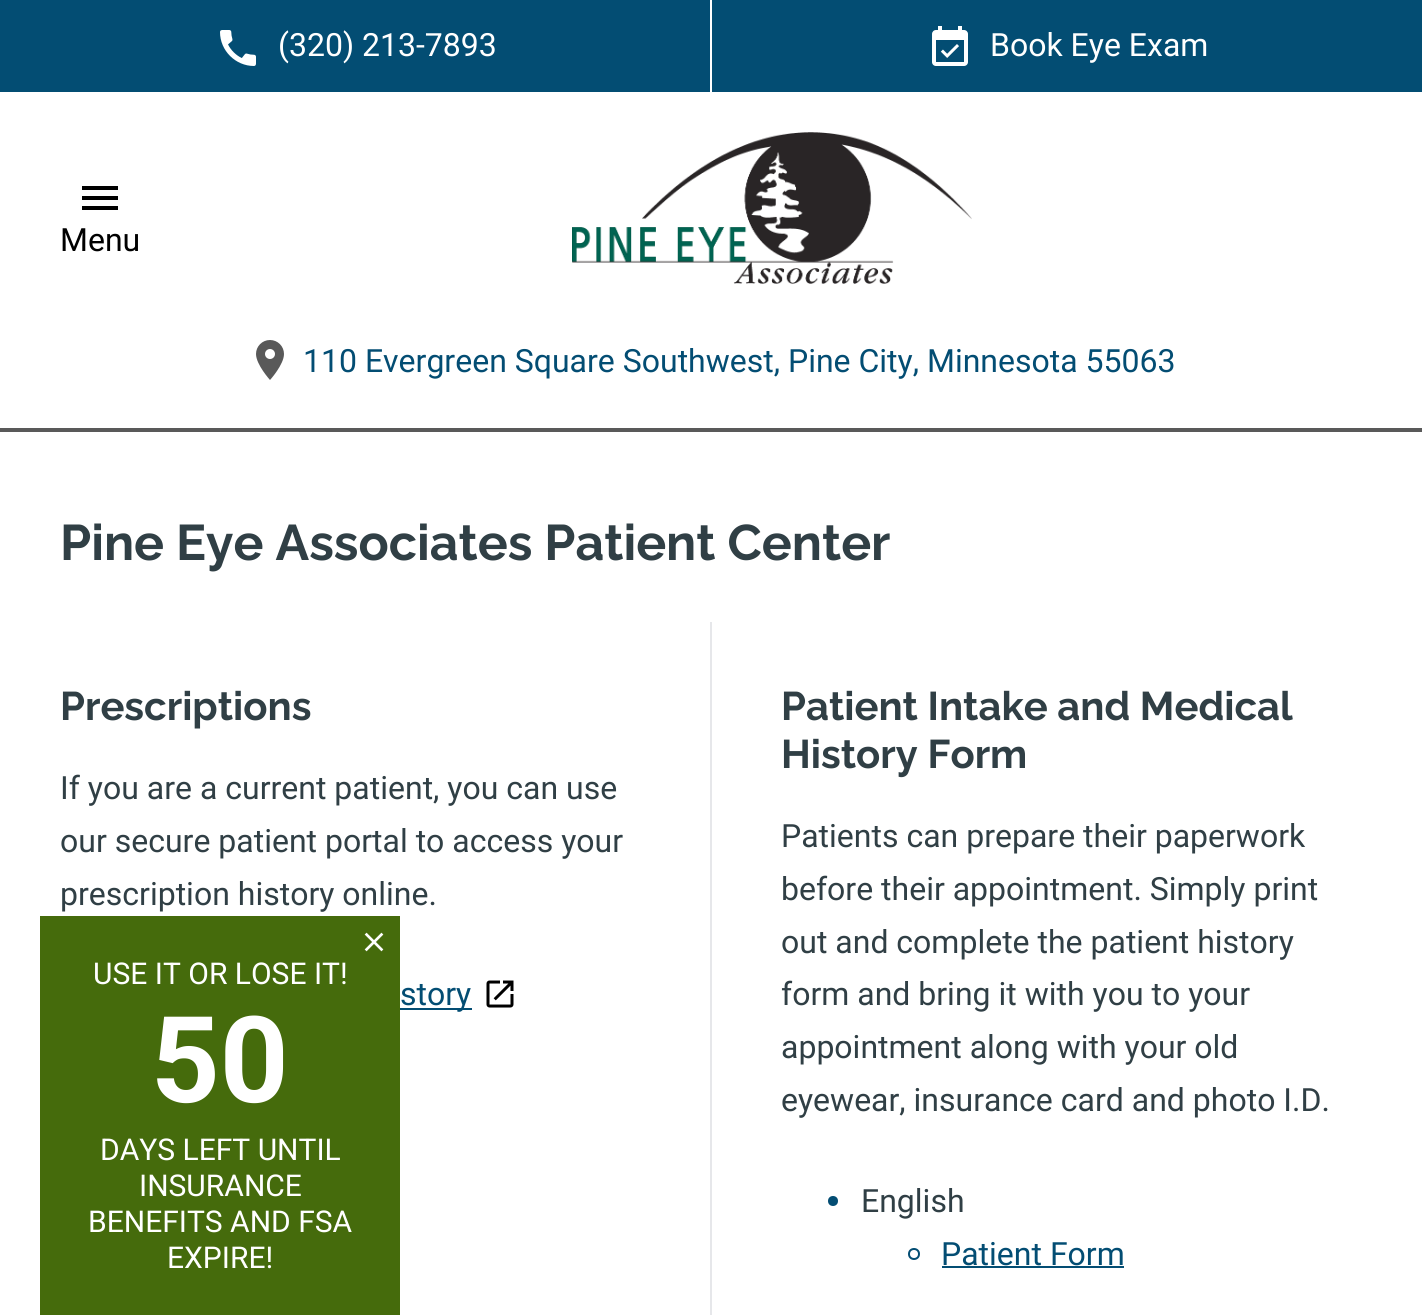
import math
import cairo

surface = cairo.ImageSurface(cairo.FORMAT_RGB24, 1422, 1315)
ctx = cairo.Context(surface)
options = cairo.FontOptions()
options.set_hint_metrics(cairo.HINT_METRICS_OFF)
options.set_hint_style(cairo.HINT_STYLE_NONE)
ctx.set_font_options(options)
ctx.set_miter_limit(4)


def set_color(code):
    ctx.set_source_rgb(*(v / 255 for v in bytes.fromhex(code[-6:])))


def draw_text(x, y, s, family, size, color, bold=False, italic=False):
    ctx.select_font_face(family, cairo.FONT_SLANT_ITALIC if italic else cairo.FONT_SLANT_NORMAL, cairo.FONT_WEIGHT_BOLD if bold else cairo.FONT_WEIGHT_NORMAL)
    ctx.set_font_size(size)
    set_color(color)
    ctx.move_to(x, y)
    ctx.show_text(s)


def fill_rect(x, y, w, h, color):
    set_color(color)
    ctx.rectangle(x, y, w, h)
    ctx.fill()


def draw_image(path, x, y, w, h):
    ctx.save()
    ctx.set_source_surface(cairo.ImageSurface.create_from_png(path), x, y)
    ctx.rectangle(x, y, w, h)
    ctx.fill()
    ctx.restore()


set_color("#ffffff")
ctx.paint()
fill_rect(0, 0, 1422, 92, "#034d73")
draw_image("assets/img1.png", 220, 30, 36, 36)
draw_text(278, 56, "(320) 213-7893", "Roboto", 32, "#ffffff")
fill_rect(710, 0, 2, 92, "#ffffff")
draw_image("assets/img2.png", 932, 26, 36, 40)
draw_text(990, 56, "Book Eye Exam", "Roboto", 32, "#ffffff")
fill_rect(0, 428, 1422, 4, "#595959")
set_color("#000000")
ctx.new_path()
ctx.move_to(82, 210)
ctx.line_to(118, 210)
ctx.line_to(118, 206)
ctx.line_to(82, 206)
ctx.close_path()
ctx.move_to(82, 200)
ctx.line_to(118, 200)
ctx.line_to(118, 196)
ctx.line_to(82, 196)
ctx.close_path()
ctx.move_to(82, 186)
ctx.line_to(82, 190)
ctx.line_to(118, 190)
ctx.line_to(118, 186)
ctx.close_path()
ctx.fill()
draw_text(60, 251, "Menu", "Roboto", 32, "#000000")
draw_image("assets/img3.png", 572, 132, 400, 152)
draw_image("assets/img4.png", 256, 340, 28, 40)
draw_text(303, 372, "110 Evergreen Square Southwest, Pine City, Minnesota 55063", "Roboto", 32, "#034d73")
draw_text(60, 560, "Pine Eye Associates Patient Center", "Raleway", 50, "#303f45", bold=True)
fill_rect(710, 622, 2, 693, "#e6e7ea")
draw_text(60, 720, "Prescriptions", "Raleway", 40, "#303f45", bold=True)
draw_text(60, 799, "If you are a current patient, you can use", "Roboto", 32, "#303f45")
draw_text(60, 852, "our secure patient portal to access your", "Roboto", 32, "#303f45")
draw_text(60, 905, "prescription history online.", "Roboto", 32, "#303f45")
fill_rect(400, 1008, 72, 2, "#034d73")
draw_text(400, 1005, "story", "Roboto", 32, "#034d73")
draw_image("assets/img5.png", 486, 980, 28, 28)
draw_text(781, 720, "Patient Intake and Medical", "Raleway", 40, "#303f45", bold=True)
draw_text(781, 768, "History Form", "Raleway", 40, "#303f45", bold=True)
draw_text(781, 847, "Patients can prepare their paperwork", "Roboto", 32, "#303f45")
draw_text(781, 900, "before their appointment. Simply print", "Roboto", 32, "#303f45")
draw_text(781, 953, "out and complete the patient history", "Roboto", 32, "#303f45")
draw_text(781, 1005, "form and bring it with you to your", "Roboto", 32, "#303f45")
draw_text(781, 1058, "appointment along with your old", "Roboto", 32, "#303f45")
draw_text(781, 1111, "eyewear, insurance card and photo I.D.", "Roboto", 32, "#303f45")
set_color("#034d73")
ctx.new_path()
ctx.arc(833, 1201, 5, 0, 2 * math.pi)
ctx.fill()
draw_text(861, 1212, "English", "Roboto", 32, "#303f45")
ctx.new_path()
ctx.arc(914, 1254, 5, 0, 2 * math.pi)
set_color("#034d73")
ctx.stroke()
draw_text(941, 1265, "Patient Form", "Roboto", 32, "#034d73")
fill_rect(942, 1266, 182, 2, "#034d73")
fill_rect(40, 916, 360, 399, "#456b0c")
draw_image("assets/img6.png", 364, 932, 20, 20)
draw_text(93, 984, "USE IT OR LOSE IT!", "Roboto", 30, "#ffffff")
draw_text(151, 1102, "50", "Roboto", 120, "#ffffff", bold=True)
draw_text(100, 1160, "DAYS LEFT UNTIL", "Roboto", 30, "#ffffff")
draw_text(139, 1196, "INSURANCE", "Roboto", 30, "#ffffff")
draw_text(88, 1232, "BENEFITS AND FSA", "Roboto", 30, "#ffffff")
draw_text(167, 1268, "EXPIRE!", "Roboto", 30, "#ffffff")
surface.write_to_png("output.png")
